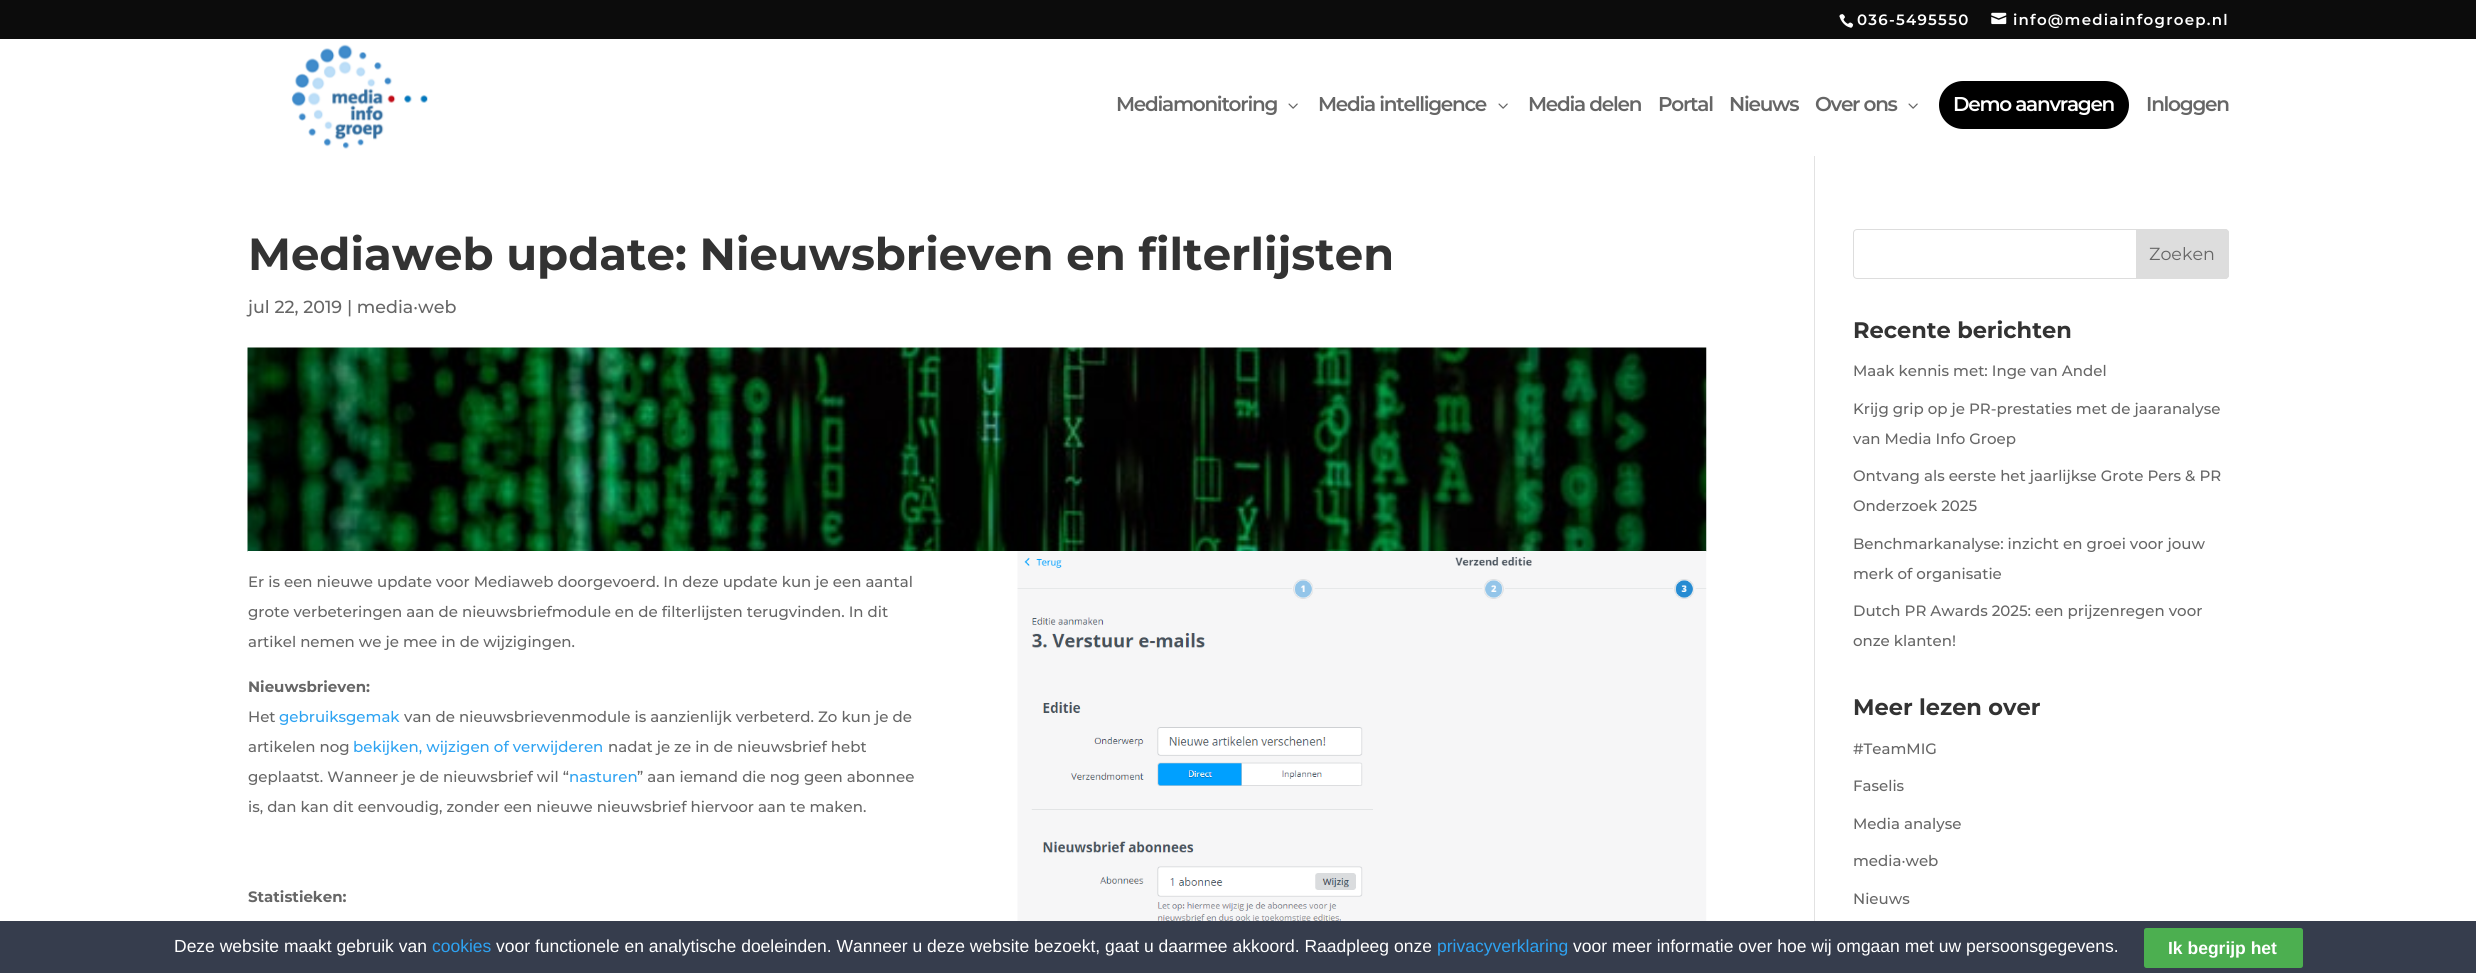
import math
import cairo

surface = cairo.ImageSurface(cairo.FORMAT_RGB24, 2476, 973)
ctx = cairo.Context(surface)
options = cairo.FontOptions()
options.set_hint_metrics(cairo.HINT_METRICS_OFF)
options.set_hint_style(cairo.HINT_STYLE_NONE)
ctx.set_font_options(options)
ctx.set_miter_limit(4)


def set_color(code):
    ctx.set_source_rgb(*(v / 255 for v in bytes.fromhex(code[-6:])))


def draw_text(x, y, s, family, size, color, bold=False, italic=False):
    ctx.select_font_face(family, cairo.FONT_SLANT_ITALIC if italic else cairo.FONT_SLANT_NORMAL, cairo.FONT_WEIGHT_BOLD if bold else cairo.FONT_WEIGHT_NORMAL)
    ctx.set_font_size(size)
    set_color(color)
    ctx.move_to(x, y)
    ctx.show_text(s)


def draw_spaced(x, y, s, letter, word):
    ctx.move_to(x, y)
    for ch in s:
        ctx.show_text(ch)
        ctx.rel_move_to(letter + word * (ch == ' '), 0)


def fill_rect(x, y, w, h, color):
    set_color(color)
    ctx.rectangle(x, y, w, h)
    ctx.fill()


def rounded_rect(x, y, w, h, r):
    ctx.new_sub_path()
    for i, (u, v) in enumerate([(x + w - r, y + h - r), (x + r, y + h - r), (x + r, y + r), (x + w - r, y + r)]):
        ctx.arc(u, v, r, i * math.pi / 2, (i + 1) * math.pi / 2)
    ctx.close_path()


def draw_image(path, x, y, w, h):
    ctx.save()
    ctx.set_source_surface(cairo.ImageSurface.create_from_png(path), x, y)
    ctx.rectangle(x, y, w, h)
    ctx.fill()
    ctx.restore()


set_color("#ffffff")
ctx.paint()
fill_rect(0, 0, 2476, 39, "#0c0c0c")
draw_image("assets/img1.png", 1839, 14, 15, 14)
ctx.select_font_face("Montserrat SemiBold")
ctx.set_font_size(15)
set_color("#ffffff")
draw_spaced(1857, 25, "036-5495550", 1.25, 0)
draw_image("assets/img2.png", 1991, 12, 16, 13)
draw_spaced(2013, 25, "info@mediainfogroep.nl", 1.25, 0)
draw_image("assets/img3.png", 291, 44, 137, 105)
ctx.set_font_size(20)
set_color("#666666")
draw_spaced(1116, 111, "Mediamonitoring", -1.25, 0)
draw_image("assets/img4.png", 1288, 103, 10, 6)
draw_spaced(1318, 111, "Media intelligence", -1.25, 0)
draw_image("assets/img4.png", 1498, 103, 10, 6)
draw_spaced(1528, 111, "Media delen", -1.25, 0)
draw_spaced(1658, 111, "Portal", -1.25, 0)
draw_spaced(1729, 111, "Nieuws", -1.25, 0)
draw_spaced(1815, 111, "Over ons", -1.25, 0)
draw_image("assets/img4.png", 1908, 103, 10, 6)
set_color("#000000")
rounded_rect(1940.5, 82.5, 187, 45, 22.5)
ctx.fill_preserve()
ctx.set_line_width(3)
ctx.stroke()
set_color("#ffffff")
draw_spaced(1953, 111, "Demo aanvragen", -1.25, 0)
set_color("#666666")
draw_spaced(2146, 111, "Inloggen", -1.25, 0)
fill_rect(1814, 156, 1, 765, "#e2e2e2")
draw_text(248, 270, "Mediaweb update: Nieuwsbrieven en filterlijsten", "Montserrat", 45, "#333333", bold=True)
draw_text(248, 313, "jul 22, 2019 | media·web", "Montserrat Medium", 17.5, "#666666")
draw_image("assets/img5.png", 247, 347, 1460, 205)
fill_rect(248, 551, 1458, 1, "#ffffff")
draw_text(248, 587, "Er is een nieuwe update voor Mediaweb doorgevoerd. In deze update kun je een aantal", "Montserrat Medium", 15, "#666666")
draw_text(248, 617, "grote verbeteringen aan de nieuwsbriefmodule en de filterlijsten terugvinden. In dit", "Montserrat Medium", 15, "#666666")
draw_text(248, 647, "artikel nemen we je mee in de wijzigingen.", "Montserrat Medium", 15, "#666666")
draw_text(248, 692, "Nieuwsbrieven:", "Montserrat", 15, "#666666", bold=True)
draw_text(248, 722, "Het", "Montserrat Medium", 15, "#666666")
draw_text(279, 722, "gebruiksgemak", "Montserrat Medium", 15, "#2ea3f2")
draw_text(404, 722, "van de nieuwsbrievenmodule is aanzienlijk verbeterd. Zo kun je de", "Montserrat Medium", 15, "#666666")
draw_text(248, 752, "artikelen nog", "Montserrat Medium", 15, "#666666")
draw_text(353, 752, "bekijken, wijzigen of verwijderen", "Montserrat Medium", 15, "#2ea3f2")
draw_text(608, 752, "nadat je ze in de nieuwsbrief hebt", "Montserrat Medium", 15, "#666666")
draw_text(248, 782, "geplaatst. Wanneer je de nieuwsbrief wil “", "Montserrat Medium", 15, "#666666")
draw_text(569, 782, "nasturen", "Montserrat Medium", 15, "#2ea3f2")
draw_text(637, 782, "” aan iemand die nog geen abonnee", "Montserrat Medium", 15, "#666666")
draw_text(248, 812, "is, dan kan dit eenvoudig, zonder een nieuwe nieuwsbrief hiervoor aan te maken.", "Montserrat Medium", 15, "#666666")
draw_text(248, 902, "Statistieken:", "Montserrat", 15, "#666666", bold=True)
draw_image("assets/img6.png", 1017, 551, 690, 370)
rounded_rect(1853.5, 229.5, 375, 49, 3.5)
set_color("#dddddd")
ctx.set_line_width(1)
ctx.stroke()
ctx.new_path()
ctx.move_to(2136.5, 229.5)
ctx.line_to(2225, 229.5)
ctx.curve_to(2227, 229.5, 2228.5, 231, 2228.5, 233)
ctx.line_to(2228.5, 275)
ctx.curve_to(2228.5, 277, 2227, 278.5, 2225, 278.5)
ctx.line_to(2136.5, 278.5)
ctx.close_path()
ctx.fill_preserve()
ctx.stroke()
draw_text(2149, 260, "Zoeken", "Montserrat", 17.5, "#666666")
draw_text(1853, 338, "Recente berichten", "Montserrat", 22.5, "#333333", bold=True)
draw_text(1853, 376, "Maak kennis met: Inge van Andel", "Montserrat Medium", 15, "#666666")
draw_text(1853, 414, "Krijg grip op je PR-prestaties met de jaaranalyse", "Montserrat Medium", 15, "#666666")
draw_text(1853, 444, "van Media Info Groep", "Montserrat Medium", 15, "#666666")
draw_text(1853, 481, "Ontvang als eerste het jaarlijkse Grote Pers & PR", "Montserrat Medium", 15, "#666666")
draw_text(1853, 511, "Onderzoek 2025", "Montserrat Medium", 15, "#666666")
draw_text(1853, 549, "Benchmarkanalyse: inzicht en groei voor jouw", "Montserrat Medium", 15, "#666666")
draw_text(1853, 579, "merk of organisatie", "Montserrat Medium", 15, "#666666")
draw_text(1853, 616, "Dutch PR Awards 2025: een prijzenregen voor", "Montserrat Medium", 15, "#666666")
draw_text(1853, 646, "onze klanten!", "Montserrat Medium", 15, "#666666")
draw_text(1853, 715, "Meer lezen over", "Montserrat", 22.5, "#333333", bold=True)
draw_text(1853, 754, "#TeamMIG", "Montserrat Medium", 15, "#666666")
draw_text(1853, 791, "Faselis", "Montserrat Medium", 15, "#666666")
draw_text(1853, 829, "Media analyse", "Montserrat Medium", 15, "#666666")
draw_text(1853, 866, "media·web", "Montserrat Medium", 15, "#666666")
draw_text(1853, 904, "Nieuws", "Montserrat Medium", 15, "#666666")
fill_rect(0, 921, 2476, 52, "#363d4d")
draw_text(174, 952, "Deze website maakt gebruik van", "Liberation Sans", 17.5, "#ffffff")
draw_text(432, 952, "cookies", "Liberation Sans", 17.5, "#2ea3f2")
draw_text(496, 952, "voor functionele en analytische doeleinden. Wanneer u deze website bezoekt, gaat u daarmee akkoord. Raadpleeg onze", "Liberation Sans", 17.5, "#ffffff")
draw_text(1437, 952, "privacyverklaring", "Liberation Sans", 17.5, "#2ea3f2")
draw_text(1573, 952, "voor meer informatie over hoe wij omgaan met uw persoonsgegevens.", "Liberation Sans", 17.5, "#ffffff")
set_color("#4caf50")
rounded_rect(2144, 928, 159, 40, 2.5)
ctx.fill()
draw_text(2168, 954, "Ik begrijp het", "Liberation Sans", 17.5, "#ffffff", bold=True)
surface.write_to_png("output.png")
